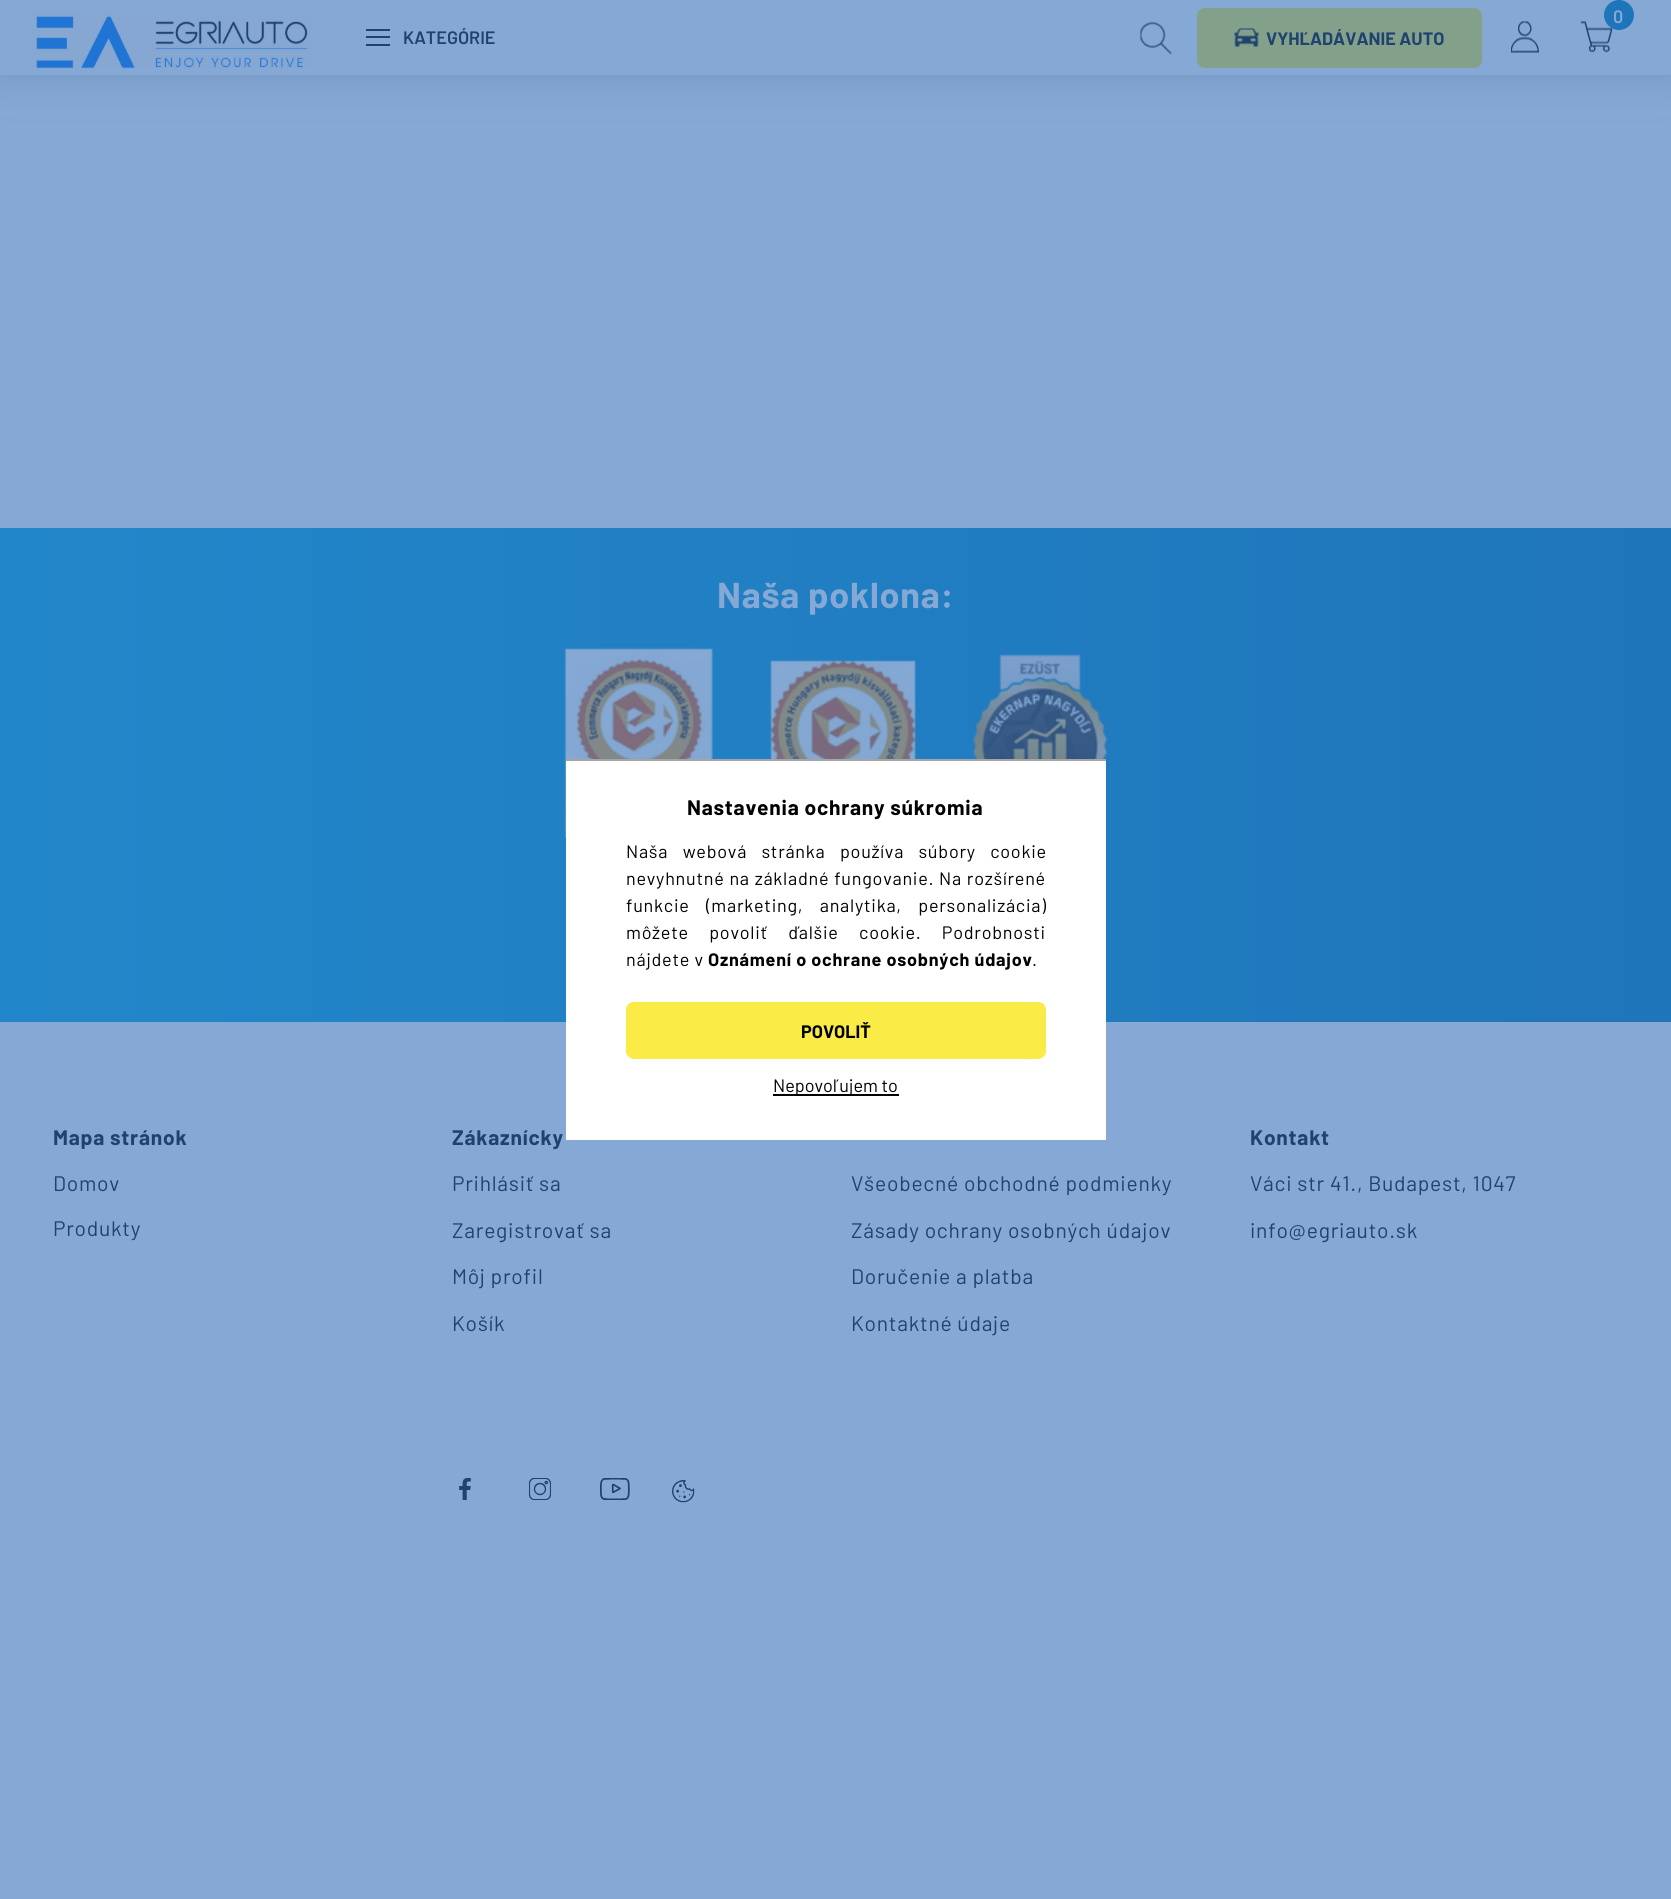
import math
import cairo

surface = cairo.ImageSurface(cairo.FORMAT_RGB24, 1671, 1899)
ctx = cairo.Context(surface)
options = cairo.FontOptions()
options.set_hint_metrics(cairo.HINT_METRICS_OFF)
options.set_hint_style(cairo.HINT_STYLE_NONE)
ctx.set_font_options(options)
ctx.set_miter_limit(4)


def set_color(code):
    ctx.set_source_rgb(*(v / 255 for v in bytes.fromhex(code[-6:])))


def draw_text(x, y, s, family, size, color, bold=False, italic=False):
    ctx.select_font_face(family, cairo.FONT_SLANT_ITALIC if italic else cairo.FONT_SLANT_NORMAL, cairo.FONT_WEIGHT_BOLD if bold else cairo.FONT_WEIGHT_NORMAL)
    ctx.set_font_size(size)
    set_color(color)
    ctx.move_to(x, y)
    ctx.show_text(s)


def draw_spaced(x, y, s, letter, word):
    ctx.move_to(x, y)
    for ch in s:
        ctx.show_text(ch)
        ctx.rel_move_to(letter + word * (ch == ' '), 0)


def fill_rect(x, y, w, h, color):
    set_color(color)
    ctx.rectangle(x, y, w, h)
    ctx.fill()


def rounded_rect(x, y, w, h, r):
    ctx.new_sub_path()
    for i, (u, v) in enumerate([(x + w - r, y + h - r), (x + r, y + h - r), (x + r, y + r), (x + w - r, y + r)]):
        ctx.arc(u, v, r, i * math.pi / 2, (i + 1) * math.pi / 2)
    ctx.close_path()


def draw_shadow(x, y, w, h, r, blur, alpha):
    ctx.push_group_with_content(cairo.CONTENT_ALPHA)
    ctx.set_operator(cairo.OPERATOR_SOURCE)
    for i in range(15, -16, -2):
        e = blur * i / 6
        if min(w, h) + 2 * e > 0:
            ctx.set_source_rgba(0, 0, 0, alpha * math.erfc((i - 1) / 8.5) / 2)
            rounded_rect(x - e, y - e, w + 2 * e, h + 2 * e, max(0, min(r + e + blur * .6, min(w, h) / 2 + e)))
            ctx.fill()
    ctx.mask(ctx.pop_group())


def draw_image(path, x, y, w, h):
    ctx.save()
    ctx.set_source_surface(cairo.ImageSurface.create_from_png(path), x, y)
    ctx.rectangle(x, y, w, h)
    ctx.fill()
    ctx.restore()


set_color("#85a9d4")
ctx.paint()
set_color("#1f436e")
draw_shadow(0, 0, 1671, 75, 0, 22.5, 0.2)
fill_rect(0, 0, 1671, 75, "#85a9d4")
draw_image("assets/img1.png", 30, 11, 283, 58)
fill_rect(366, 29, 24, 2, "#1f436e")
fill_rect(366, 36, 24, 2, "#1f436e")
fill_rect(366, 44, 24, 2, "#1f436e")
draw_text(403, 44, "KATEGÓRIE", "Barlow SemiBold", 18, "#1f436e")
draw_image("assets/img2.png", 1581, 21, 32, 32)
set_color("#1f75ba")
ctx.arc(1619, 15, 15, 0, 2 * math.pi)
ctx.fill()
draw_text(1613, 23, "0", "Barlow SemiBold", 18, "#85a9d4")
draw_image("assets/img3.png", 1140, 22, 32, 33)
gradient = cairo.LinearGradient(1197, 38, 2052, 37)
gradient.add_color_stop_rgba(0.33, 0.514, 0.631, 0.541, 1)
gradient.add_color_stop_rgba(0.67, 0.122, 0.459, 0.729, 1)
ctx.set_source(gradient)
rounded_rect(1197, 8, 285, 60, 8)
ctx.fill()
draw_image("assets/img4.png", 1234, 28, 25, 19)
draw_text(1266, 45, "VYHĽADÁVANIE AUTO", "Barlow", 18, "#1f436e", bold=True)
draw_image("assets/img5.png", 1511, 21, 28, 32)
gradient = cairo.LinearGradient(0, 775, 1671, 775)
gradient.add_color_stop_rgba(0, 0.133, 0.529, 0.792, 1)
gradient.add_color_stop_rgba(1, 0.122, 0.459, 0.729, 1)
ctx.set_source(gradient)
ctx.rectangle(0, 528, 1671, 494)
ctx.fill()
ctx.set_font_size(36)
set_color("#85a9d4")
draw_spaced(717, 608, "Naša poklona:", 0.75, 0)
draw_image("assets/img6.png", 564, 647, 544, 192)
ctx.set_font_size(21)
set_color("#1f436e")
draw_spaced(53, 1145, "Mapa stránok", 0.75, 0)
ctx.select_font_face("Barlow")
draw_spaced(53, 1191, "Domov", 0.75, 0)
draw_spaced(53, 1236, "Produkty", 0.75, 0)
ctx.select_font_face("Barlow", cairo.FONT_SLANT_NORMAL, cairo.FONT_WEIGHT_BOLD)
draw_spaced(452, 1145, "Zákaznícky", 0.75, 0)
ctx.select_font_face("Barlow")
draw_spaced(452, 1191, "Prihlásiť sa", 0.75, 0)
draw_spaced(452, 1238, "Zaregistrovať sa", 0.75, 0)
draw_spaced(452, 1284, "Môj profil", 0.75, 0)
draw_spaced(452, 1331, "Košík", 0.75, 0)
draw_spaced(851, 1191, "Všeobecné obchodné podmienky", 0.75, 0)
draw_spaced(851, 1238, "Zásady ochrany osobných údajov", 0.75, 0)
draw_spaced(851, 1284, "Doručenie a platba", 0.75, 0)
draw_spaced(851, 1331, "Kontaktné údaje", 0.75, 0)
ctx.select_font_face("Barlow", cairo.FONT_SLANT_NORMAL, cairo.FONT_WEIGHT_BOLD)
draw_spaced(1250, 1145, "Kontakt", 0.75, 0)
ctx.select_font_face("Barlow")
draw_spaced(1250, 1191, "Váci str 41., Budapest, 1047", 0.75, 0)
draw_spaced(1250, 1238, "info@egriauto.sk", 0.75, 0)
draw_image("assets/img7.png", 459, 1478, 12, 22)
draw_image("assets/img8.png", 529, 1478, 22, 22)
draw_image("assets/img9.png", 600, 1478, 30, 22)
draw_image("assets/img10.png", 672, 1480, 23, 23)
fill_rect(566, 761, 540, 379, "#ffffff")
fill_rect(566, 759, 540, 2, "#a5a5a5")
ctx.select_font_face("Barlow", cairo.FONT_SLANT_NORMAL, cairo.FONT_WEIGHT_BOLD)
set_color("#000000")
draw_spaced(687, 815, "Nastavenia ochrany súkromia", 0.75, 0)
ctx.select_font_face("Barlow")
ctx.set_font_size(18)
draw_spaced(626, 858, "Naša webová stránka používa súbory cookie", 0.75, 10)
draw_spaced(626, 885, "nevyhnutné na základné fungovanie. Na rozšírené", 0.75, 0.5)
draw_spaced(626, 912, "funkcie (marketing, analytika, personalizácia)", 0.75, 12)
draw_spaced(626, 939, "môžete povoliť ďalšie cookie. Podrobnosti", 0.75, 16)
draw_spaced(626, 966, "nájdete v", 0.75, 0)
ctx.select_font_face("Barlow", cairo.FONT_SLANT_NORMAL, cairo.FONT_WEIGHT_BOLD)
draw_spaced(708, 966, "Oznámení o ochrane osobných údajov", 0.75, 0)
ctx.select_font_face("Barlow")
draw_spaced(1032, 966, ".", 0.75, 0)
gradient = cairo.LinearGradient(626, 1031, 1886, 1031)
gradient.add_color_stop_rgba(0.33, 0.98, 0.922, 0.275, 1)
gradient.add_color_stop_rgba(0.67, 0, 0.49, 0.737, 1)
ctx.set_source(gradient)
rounded_rect(626, 1002, 420, 57, 8)
ctx.fill()
draw_text(801, 1038, "POVOLIŤ", "Barlow", 18, "#000000", bold=True)
fill_rect(773, 1094, 126, 2, "#000000")
draw_text(773, 1092, "Nepovoľujem to", "Barlow", 18, "#000000")
surface.write_to_png("output.png")
